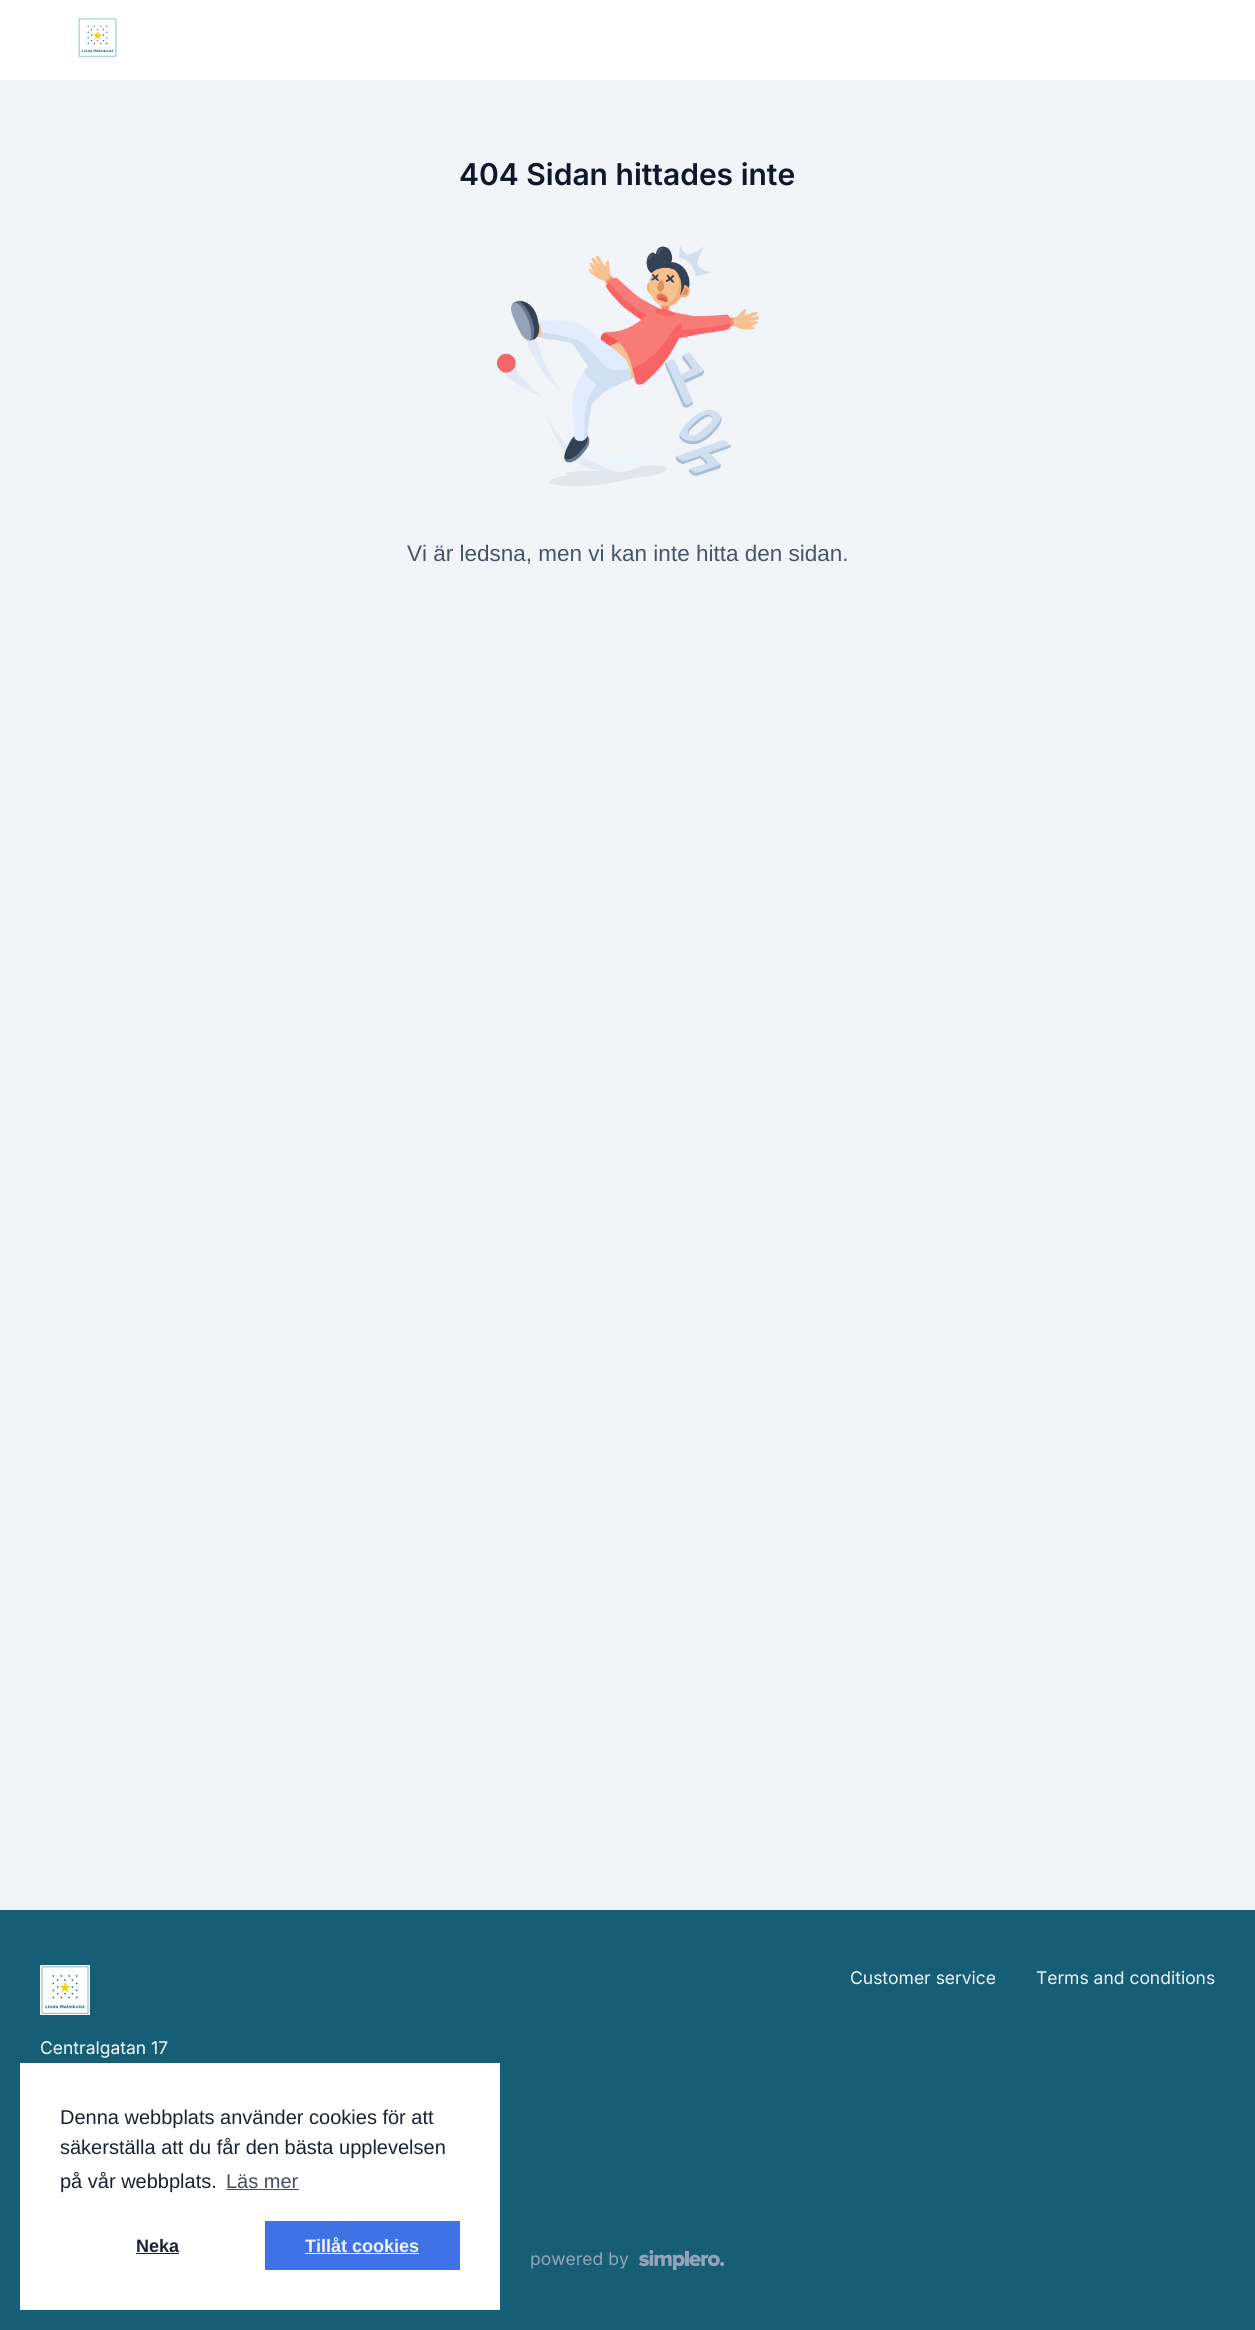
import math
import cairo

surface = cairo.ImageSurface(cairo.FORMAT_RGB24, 1255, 2330)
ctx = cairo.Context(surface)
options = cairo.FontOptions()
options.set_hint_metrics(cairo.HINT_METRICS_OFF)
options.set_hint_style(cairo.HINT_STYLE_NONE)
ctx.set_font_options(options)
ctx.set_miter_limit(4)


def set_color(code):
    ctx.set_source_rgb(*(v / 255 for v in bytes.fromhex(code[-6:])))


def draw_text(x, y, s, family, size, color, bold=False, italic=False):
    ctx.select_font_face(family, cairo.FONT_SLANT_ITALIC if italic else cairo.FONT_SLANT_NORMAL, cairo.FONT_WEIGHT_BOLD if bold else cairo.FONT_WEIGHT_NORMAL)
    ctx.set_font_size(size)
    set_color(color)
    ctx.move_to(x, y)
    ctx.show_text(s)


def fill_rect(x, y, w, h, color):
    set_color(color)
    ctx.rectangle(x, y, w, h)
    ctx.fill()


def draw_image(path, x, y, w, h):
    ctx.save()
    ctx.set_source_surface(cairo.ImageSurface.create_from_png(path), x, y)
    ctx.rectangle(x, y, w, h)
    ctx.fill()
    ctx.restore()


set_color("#f1f5f9")
ctx.paint()
fill_rect(0, 0, 1255, 80, "#ffffff")
draw_image("assets/img1.png", 78, 18, 39, 41)
draw_text(459, 185, "404 Sidan hittades inte", "Inter SemiBold", 30, "#0f172a")
draw_image("assets/img2.png", 497, 246, 262, 240)
draw_text(407, 561, "Vi är ledsna, men vi kan inte hitta den sidan.", "Liberation Sans", 22.5, "#475569")
fill_rect(0, 1910, 1255, 420, "#155e75")
draw_text(850, 1984, "Customer service", "Inter", 17.5, "#f1f5f9")
draw_text(1036, 1984, "Terms and conditions", "Inter", 17.5, "#f1f5f9")
draw_image("assets/img3.png", 40, 1965, 50, 50)
draw_text(40, 2054, "Centralgatan 17", "Inter", 17.5, "#ffffff")
draw_text(530, 2265, "powered by", "Inter", 17.5, "#94a3b8")
draw_image("assets/img4.png", 639, 2250, 85, 20)
fill_rect(20, 2063, 480, 247, "#ffffff")
draw_text(60, 2124, "Denna webbplats använder cookies för att", "Liberation Sans", 20, "#1a2133")
draw_text(60, 2154, "säkerställa att du får den bästa upplevelsen", "Liberation Sans", 20, "#1a2133")
draw_text(60, 2188, "på vår webbplats.", "Liberation Sans", 20, "#1a2133")
draw_text(226, 2188, "Läs mer", "Liberation Sans", 20, "#484d5c")
fill_rect(226, 2189, 73, 1, "#484d5c")
draw_text(136, 2252, "Neka", "Liberation Sans", 18, "#1a2133", bold=True)
fill_rect(136, 2253, 43, 1, "#1a2133")
fill_rect(265, 2221, 195, 49, "#3f73e5")
draw_text(305, 2252, "Tillåt cookies", "Liberation Sans", 18, "#f1f5f9", bold=True)
fill_rect(305, 2253, 114, 1, "#f1f5f9")
surface.write_to_png("output.png")
